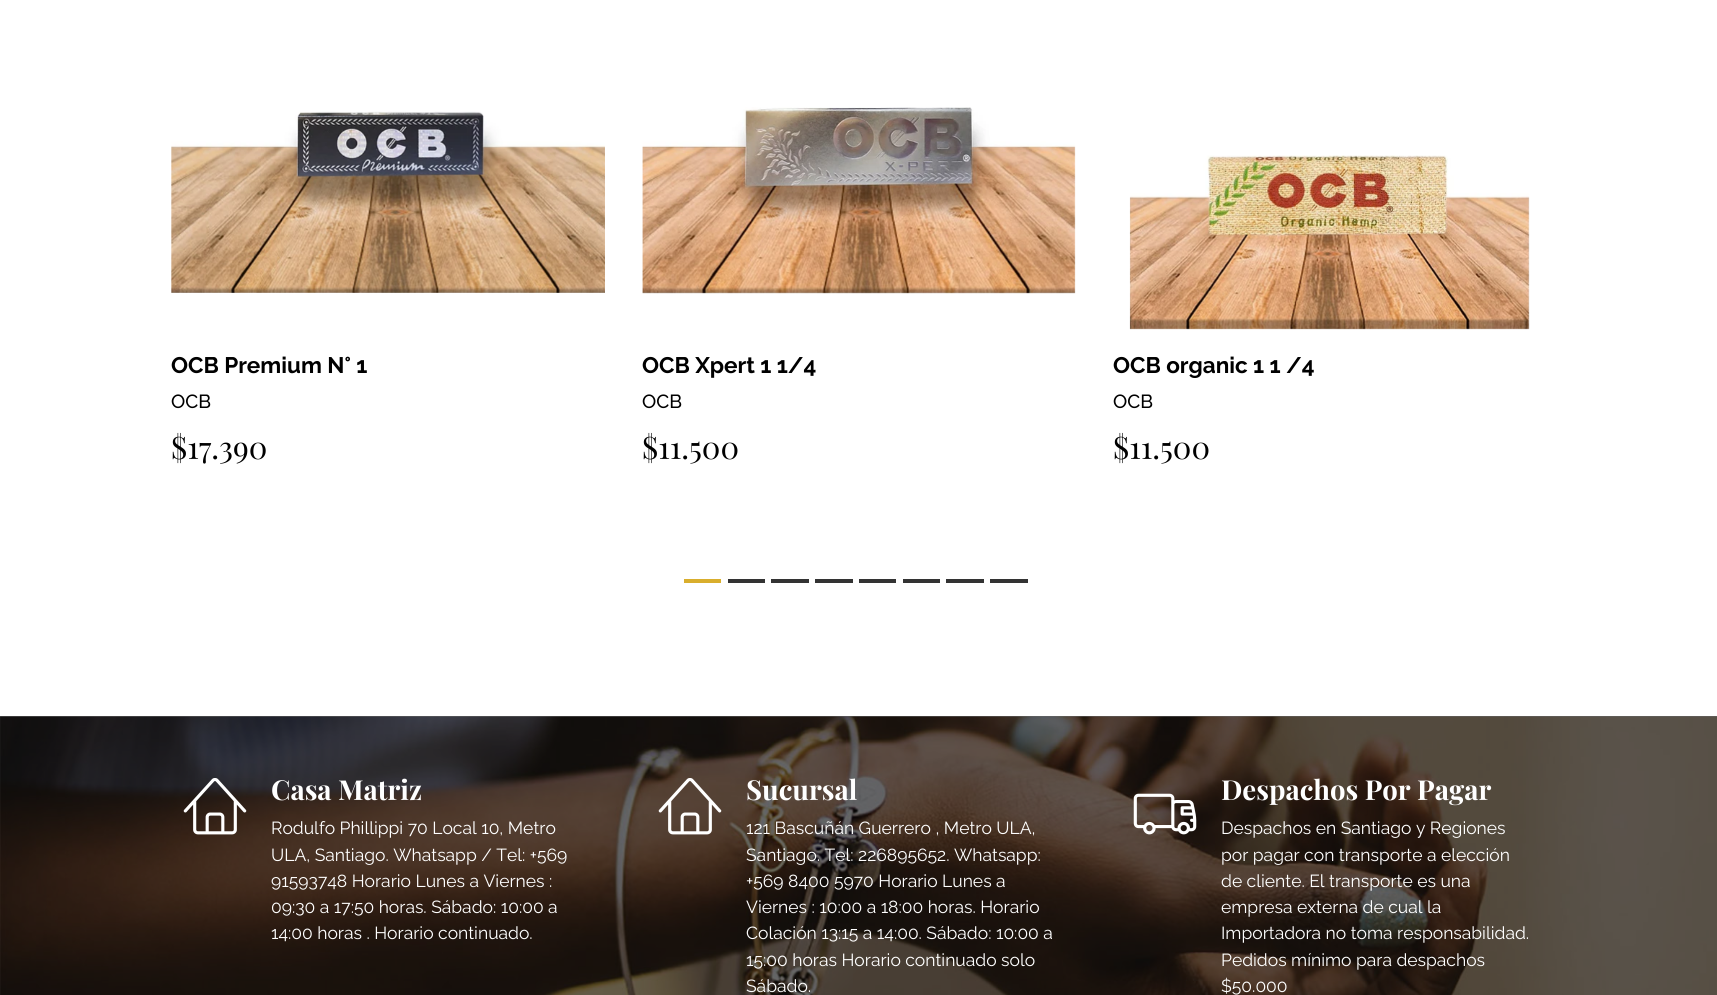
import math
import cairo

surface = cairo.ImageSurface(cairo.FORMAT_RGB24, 1717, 995)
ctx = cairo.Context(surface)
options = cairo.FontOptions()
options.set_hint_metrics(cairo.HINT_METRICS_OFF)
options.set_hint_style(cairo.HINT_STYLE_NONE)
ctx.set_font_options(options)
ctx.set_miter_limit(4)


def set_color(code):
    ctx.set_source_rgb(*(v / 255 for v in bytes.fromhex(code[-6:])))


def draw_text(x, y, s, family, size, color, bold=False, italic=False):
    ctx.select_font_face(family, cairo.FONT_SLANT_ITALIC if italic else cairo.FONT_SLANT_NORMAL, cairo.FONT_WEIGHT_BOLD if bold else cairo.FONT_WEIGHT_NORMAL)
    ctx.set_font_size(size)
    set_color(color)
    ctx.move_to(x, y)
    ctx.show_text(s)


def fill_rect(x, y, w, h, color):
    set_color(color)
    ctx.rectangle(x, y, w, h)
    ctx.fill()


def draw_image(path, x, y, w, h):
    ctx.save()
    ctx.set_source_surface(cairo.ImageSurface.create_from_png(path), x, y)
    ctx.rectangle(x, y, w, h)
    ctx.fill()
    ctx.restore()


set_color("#ffffff")
ctx.paint()
fill_rect(0, 716, 1717, 1, "#666666")
draw_image("assets/img1.png", 171, 111, 434, 182)
draw_text(171, 373, "OCB Premium N° 1", "Raleway", 22.5, "#000000", bold=True)
draw_text(171, 408, "OCB", "Raleway Medium", 19, "#000000")
draw_text(171, 459, "$17.390", "Playfair Display", 31, "#000000")
draw_image("assets/img2.png", 642, 107, 434, 187)
draw_text(642, 373, "OCB Xpert 1 1/4", "Raleway", 22.5, "#000000", bold=True)
draw_text(642, 408, "OCB", "Raleway Medium", 19, "#000000")
draw_text(642, 459, "$11.500", "Playfair Display", 31, "#000000")
draw_image("assets/img3.png", 1129, 155, 401, 175)
draw_text(1113, 373, "OCB organic 1 1 /4", "Raleway", 22.5, "#000000", bold=True)
draw_text(1113, 408, "OCB", "Raleway Medium", 19, "#000000")
draw_text(1113, 459, "$11.500", "Playfair Display", 31, "#000000")
fill_rect(684, 579, 37, 4, "#d9ae2d")
fill_rect(728, 579, 37, 4, "#333333")
fill_rect(771, 579, 38, 4, "#333333")
fill_rect(815, 579, 38, 4, "#333333")
fill_rect(859, 579, 37, 4, "#333333")
fill_rect(903, 579, 37, 4, "#333333")
fill_rect(946, 579, 38, 4, "#333333")
fill_rect(990, 579, 38, 4, "#333333")
draw_image("assets/img4.png", 0, 716, 1717, 279)
draw_image("assets/img5.png", 183, 778, 64, 57)
draw_text(271, 800, "Casa Matriz", "Playfair Display", 27.5, "#ffffff", bold=True)
draw_text(271, 834, "Rodulfo Phillippi 70 Local 10, Metro", "Raleway", 17.5, "#ffffff")
draw_text(271, 861, "ULA, Santiago. Whatsapp / Tel: +569", "Raleway", 17.5, "#ffffff")
draw_text(271, 887, "91593748 Horario Lunes a Viernes :", "Raleway", 17.5, "#ffffff")
draw_text(271, 913, "09:30 a 17:50 horas. Sábado: 10:00 a", "Raleway", 17.5, "#ffffff")
draw_text(271, 939, "14:00 horas . Horario continuado.", "Raleway", 17.5, "#ffffff")
draw_image("assets/img6.png", 658, 778, 64, 57)
draw_text(746, 800, "Sucursal", "Playfair Display", 27.5, "#ffffff", bold=True)
draw_text(746, 834, "121 Bascuñán Guerrero , Metro ULA,", "Raleway", 17.5, "#ffffff")
draw_text(746, 861, "Santiago. Tel: 226895652. Whatsapp:", "Raleway", 17.5, "#ffffff")
draw_text(746, 887, "+569 8400 5970 Horario Lunes a", "Raleway", 17.5, "#ffffff")
draw_text(746, 913, "Viernes : 10:00 a 18:00 horas. Horario", "Raleway", 17.5, "#ffffff")
draw_text(746, 939, "Colación 13:15 a 14:00. Sábado: 10:00 a", "Raleway", 17.5, "#ffffff")
draw_text(746, 966, "15:00 horas Horario continuado solo", "Raleway", 17.5, "#ffffff")
draw_text(746, 992, "Sábado.", "Raleway", 17.5, "#ffffff")
draw_image("assets/img7.png", 1133, 793, 64, 42)
draw_text(1221, 800, "Despachos Por Pagar", "Playfair Display", 27.5, "#ffffff", bold=True)
draw_text(1221, 834, "Despachos en Santiago y Regiones", "Raleway", 17.5, "#ffffff")
draw_text(1221, 861, "por pagar con transporte a elección", "Raleway", 17.5, "#ffffff")
draw_text(1221, 887, "de cliente. El transporte es una", "Raleway", 17.5, "#ffffff")
draw_text(1221, 913, "empresa externa de cual la", "Raleway", 17.5, "#ffffff")
draw_text(1221, 939, "Importadora no toma responsabilidad.", "Raleway", 17.5, "#ffffff")
draw_text(1221, 966, "Pedidos mínimo para despachos", "Raleway", 17.5, "#ffffff")
draw_text(1221, 992, "$50.000", "Raleway", 17.5, "#ffffff")
surface.write_to_png("output.png")
